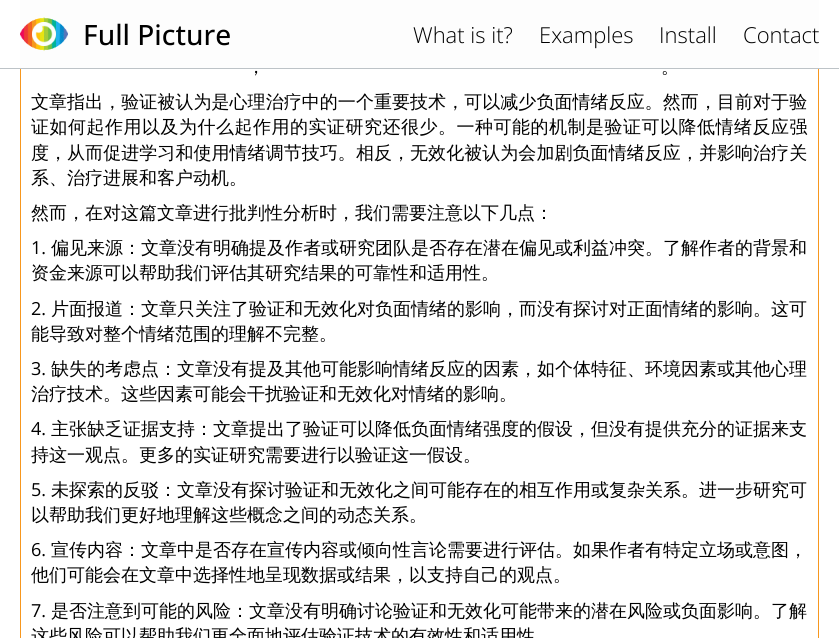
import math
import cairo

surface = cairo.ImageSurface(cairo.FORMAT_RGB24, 839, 638)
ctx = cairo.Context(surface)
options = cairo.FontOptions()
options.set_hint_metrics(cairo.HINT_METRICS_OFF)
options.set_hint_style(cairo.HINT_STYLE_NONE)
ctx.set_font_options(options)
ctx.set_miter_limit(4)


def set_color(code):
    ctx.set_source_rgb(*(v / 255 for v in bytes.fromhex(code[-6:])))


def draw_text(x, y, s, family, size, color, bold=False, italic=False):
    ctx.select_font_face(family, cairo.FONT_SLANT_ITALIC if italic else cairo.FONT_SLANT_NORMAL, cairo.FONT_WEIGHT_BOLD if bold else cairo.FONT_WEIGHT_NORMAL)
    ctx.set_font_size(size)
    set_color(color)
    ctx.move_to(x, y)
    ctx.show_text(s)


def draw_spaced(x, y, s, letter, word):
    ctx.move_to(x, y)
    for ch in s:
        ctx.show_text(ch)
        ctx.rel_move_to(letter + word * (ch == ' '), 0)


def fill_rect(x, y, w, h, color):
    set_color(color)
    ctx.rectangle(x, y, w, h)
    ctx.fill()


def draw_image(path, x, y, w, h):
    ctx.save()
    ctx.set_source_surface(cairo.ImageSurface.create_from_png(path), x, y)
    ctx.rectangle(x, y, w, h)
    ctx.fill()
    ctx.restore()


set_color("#ffffff")
ctx.paint()
ctx.rectangle(20.5, -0.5, 798, 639)
set_color("#f7971e")
ctx.set_line_width(1)
ctx.stroke()
fill_rect(20, 0, 799, 68, "#fdfdfd")
fill_rect(0, 68, 839, 1, "#bdc3c7")
draw_image("assets/img1.png", 20, 17, 48, 34)
draw_text(83, 45, "Full Picture", "Open Sans Medium", 28, "#000000")
draw_text(413, 43, "What is it?", "Open Sans Light", 22, "#000000")
draw_text(539, 43, "Examples", "Open Sans Light", 22, "#000000")
draw_text(659, 43, "Install", "Open Sans Light", 22, "#000000")
draw_text(743, 43, "Contact", "Open Sans Light", 22, "#000000")
draw_text(247, 73, "，", "WenQuanYi Zen Hei Medium", 18, "#000000")
draw_text(661, 73, "。", "WenQuanYi Zen Hei Medium", 18, "#000000")
draw_spaced(31, 108, "文章指出，验证被认为是心理治疗中的一个重要技术，可以减少负面情绪反应。然而，目前对于验", 0.05, 0)
draw_spaced(31, 133, "证如何起作用以及为什么起作用的实证研究还很少。一种可能的机制是验证可以降低情绪反应强", 0.5, 0)
draw_spaced(31, 159, "度，从而促进学习和使用情绪调节技巧。相反，无效化被认为会加剧负面情绪反应，并影响治疗关", 0.05, 0)
draw_text(31, 184, "系、治疗进展和客户动机。", "WenQuanYi Zen Hei Medium", 18, "#000000")
draw_text(31, 219, "然而，在对这篇文章进行批判性分析时，我们需要注意以下几点：", "WenQuanYi Zen Hei Medium", 18, "#000000")
draw_text(31, 254, "1.", "Open Sans", 18, "#000000")
draw_text(51, 254, "偏见来源：文章没有明确提及作者或研究团队是否存在潜在偏见或利益冲突。了解作者的背景和", "WenQuanYi Zen Hei Medium", 18, "#000000")
draw_text(31, 279, "资金来源可以帮助我们评估其研究结果的可靠性和适用性。", "WenQuanYi Zen Hei Medium", 18, "#000000")
draw_text(31, 315, "2.", "Open Sans", 18, "#000000")
draw_text(51, 315, "片面报道：文章只关注了验证和无效化对负面情绪的影响，而没有探讨对正面情绪的影响。这可", "WenQuanYi Zen Hei Medium", 18, "#000000")
draw_text(31, 340, "能导致对整个情绪范围的理解不完整。", "WenQuanYi Zen Hei Medium", 18, "#000000")
draw_text(31, 375, "3.", "Open Sans", 18, "#000000")
draw_text(51, 375, "缺失的考虑点：文章没有提及其他可能影响情绪反应的因素，如个体特征、环境因素或其他心理", "WenQuanYi Zen Hei Medium", 18, "#000000")
draw_text(31, 400, "治疗技术。这些因素可能会干扰验证和无效化对情绪的影响。", "WenQuanYi Zen Hei Medium", 18, "#000000")
draw_text(31, 435, "4.", "Open Sans", 18, "#000000")
draw_text(51, 435, "主张缺乏证据支持：文章提出了验证可以降低负面情绪强度的假设，但没有提供充分的证据来支", "WenQuanYi Zen Hei Medium", 18, "#000000")
draw_text(31, 461, "持这一观点。更多的实证研究需要进行以验证这一假设。", "WenQuanYi Zen Hei Medium", 18, "#000000")
draw_text(31, 496, "5.", "Open Sans", 18, "#000000")
draw_text(51, 496, "未探索的反驳：文章没有探讨验证和无效化之间可能存在的相互作用或复杂关系。进一步研究可", "WenQuanYi Zen Hei Medium", 18, "#000000")
draw_text(31, 521, "以帮助我们更好地理解这些概念之间的动态关系。", "WenQuanYi Zen Hei Medium", 18, "#000000")
draw_text(31, 556, "6.", "Open Sans", 18, "#000000")
draw_text(51, 556, "宣传内容：文章中是否存在宣传内容或倾向性言论需要进行评估。如果作者有特定立场或意图，", "WenQuanYi Zen Hei Medium", 18, "#000000")
draw_text(31, 581, "他们可能会在文章中选择性地呈现数据或结果，以支持自己的观点。", "WenQuanYi Zen Hei Medium", 18, "#000000")
draw_text(31, 617, "7.", "Open Sans", 18, "#000000")
draw_text(51, 617, "是否注意到可能的风险：文章没有明确讨论验证和无效化可能带来的潜在风险或负面影响。了解", "WenQuanYi Zen Hei Medium", 18, "#000000")
draw_text(31, 642, "这些风险可以帮助我们更全面地评估验证技术的有效性和适用性", "WenQuanYi Zen Hei Medium", 18, "#000000")
surface.write_to_png("output.png")
